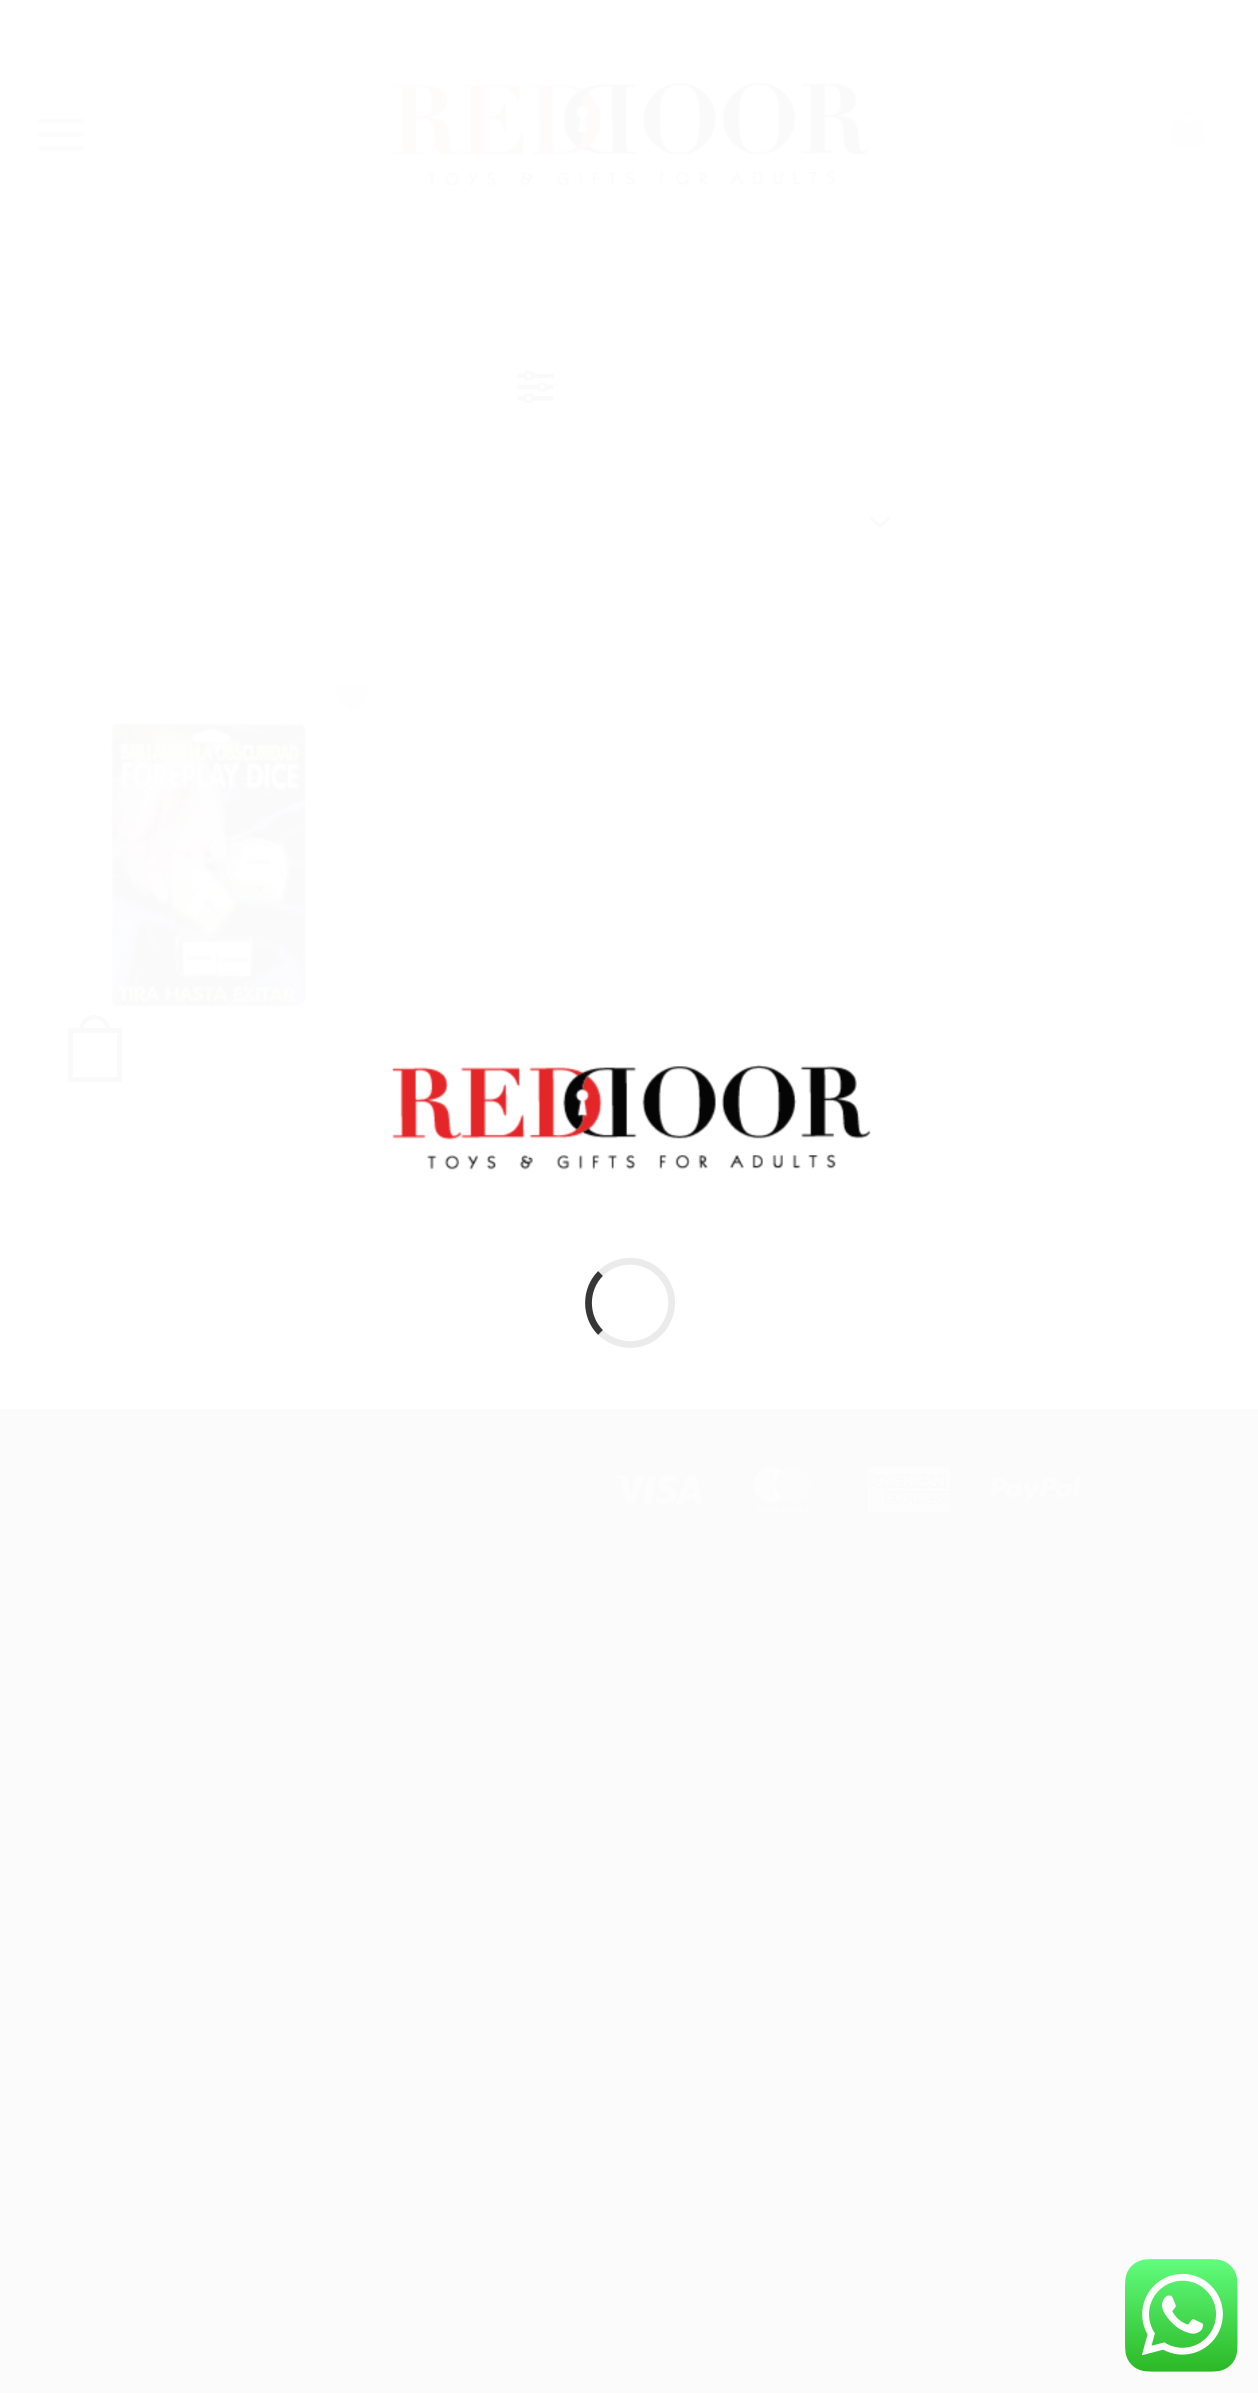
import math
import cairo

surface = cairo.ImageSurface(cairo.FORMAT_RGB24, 1258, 2393)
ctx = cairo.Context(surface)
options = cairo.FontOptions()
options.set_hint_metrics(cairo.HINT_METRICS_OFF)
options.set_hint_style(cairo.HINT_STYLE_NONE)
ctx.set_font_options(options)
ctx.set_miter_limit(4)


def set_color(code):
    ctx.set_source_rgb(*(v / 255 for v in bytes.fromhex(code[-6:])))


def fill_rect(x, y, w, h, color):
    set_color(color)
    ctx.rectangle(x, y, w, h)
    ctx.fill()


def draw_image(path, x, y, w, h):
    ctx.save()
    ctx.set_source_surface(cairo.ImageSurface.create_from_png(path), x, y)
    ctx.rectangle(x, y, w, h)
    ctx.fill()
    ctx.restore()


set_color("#fbfbfb")
ctx.paint()
fill_rect(0, 0, 1258, 1409, "#ffffff")
draw_image("assets/img1.png", 38, 118, 46, 33)
draw_image("assets/img2.png", 392, 81, 479, 105)
draw_image("assets/img3.png", 1170, 111, 35, 36)
draw_image("assets/img4.png", 517, 371, 37, 32)
ctx.new_path()
ctx.move_to(871, 517.5)
ctx.line_to(880, 526.5)
ctx.line_to(889, 517.5)
set_color("#fbfbfb")
ctx.set_line_width(3)
ctx.set_line_cap(cairo.LINE_CAP_ROUND)
ctx.set_line_join(cairo.LINE_JOIN_ROUND)
ctx.stroke()
draw_image("assets/img5.png", 335, 684, 34, 30)
draw_image("assets/img6.png", 104, 704, 217, 312)
ctx.rectangle(70.5, 1030.5, 49, 49)
set_color("#fafafa")
ctx.set_line_width(5)
ctx.set_line_cap(cairo.LINE_CAP_BUTT)
ctx.set_line_join(cairo.LINE_JOIN_MITER)
ctx.stroke()
ctx.set_fill_rule(cairo.FILL_RULE_EVEN_ODD)
ctx.new_path()
ctx.move_to(94.5, 1015)
ctx.curve_to(103, 1015, 110, 1022, 110, 1030.5)
ctx.line_to(110, 1033)
ctx.line_to(79, 1033)
ctx.line_to(79, 1030.5)
ctx.curve_to(79, 1022, 86, 1015, 94.5, 1015)
ctx.close_path()
ctx.move_to(94.5, 1019)
ctx.curve_to(100.5, 1019, 106, 1024.5, 106, 1030.5)
ctx.line_to(106, 1033)
ctx.line_to(83, 1033)
ctx.line_to(83, 1030.5)
ctx.curve_to(83, 1024.5, 88.5, 1019, 94.5, 1019)
ctx.close_path()
ctx.fill()
draw_image("assets/img7.png", 392, 1065, 479, 105)
ctx.new_path()
ctx.move_to(600.5, 1273.5)
ctx.curve_to(610.5, 1263.5, 624.5, 1259.5, 638, 1262)
ctx.curve_to(646, 1263.5, 653.5, 1267.5, 659.5, 1273.5)
ctx.curve_to(685.5, 1299.5, 667, 1344.5, 630, 1344.5)
ctx.curve_to(619, 1344.5, 608.5, 1340, 600.5, 1332.5)
set_color("#ebebeb")
ctx.set_line_width(6.8)
ctx.stroke()
ctx.new_path()
ctx.move_to(600.5, 1332.5)
ctx.curve_to(584.5, 1316.5, 584.5, 1289.5, 600.5, 1273.5)
set_color("#373737")
ctx.stroke()
draw_image("assets/img8.png", 612, 1475, 90, 29)
draw_image("assets/img9.png", 753, 1467, 59, 45)
draw_image("assets/img10.png", 868, 1467, 82, 45)
draw_image("assets/img11.png", 990, 1477, 90, 25)
draw_image("assets/img12.png", 1125, 2259, 113, 113)
surface.write_to_png("output.png")
